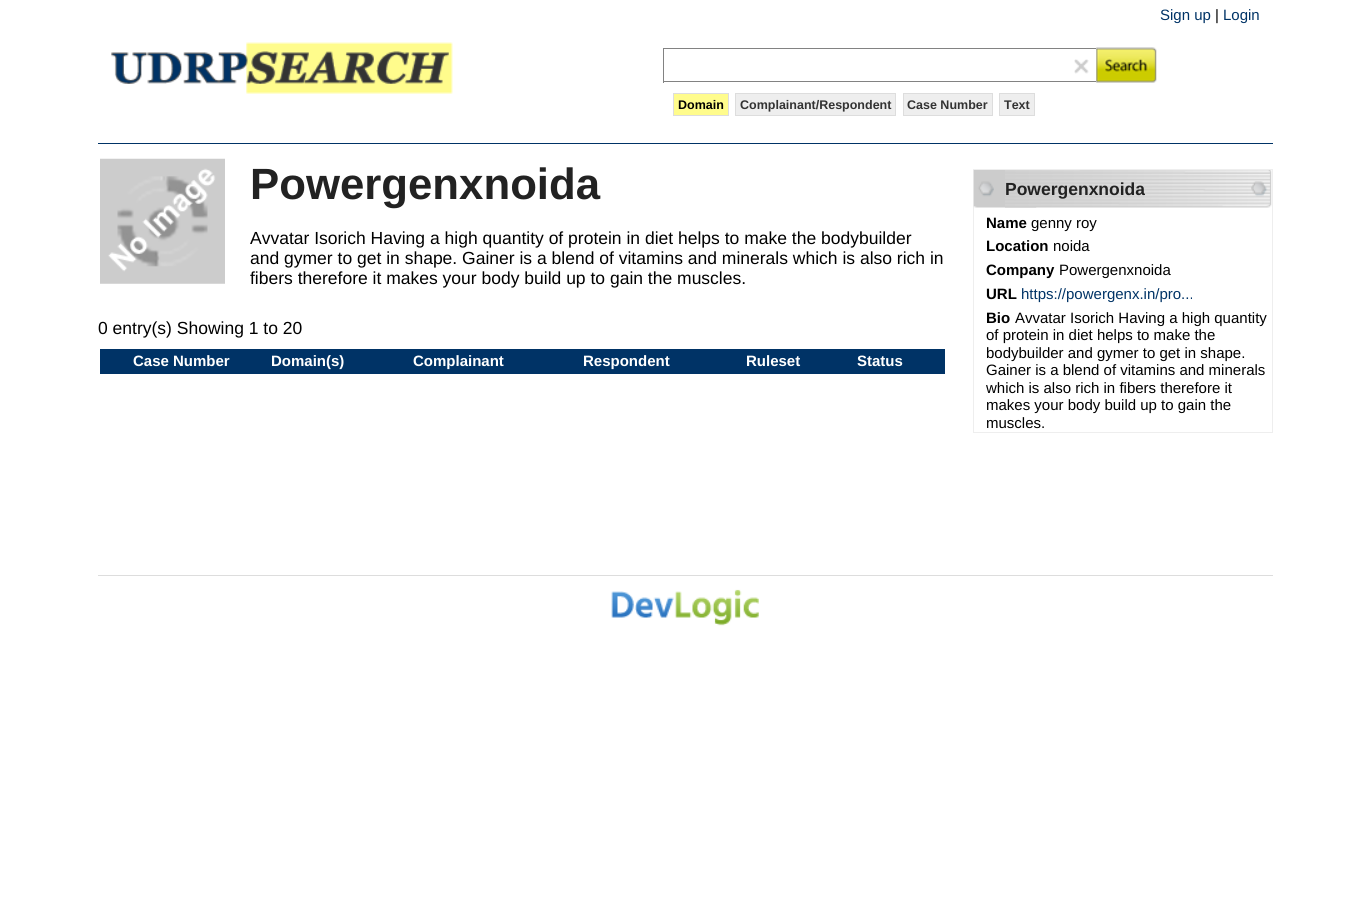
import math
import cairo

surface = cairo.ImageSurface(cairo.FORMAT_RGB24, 1370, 905)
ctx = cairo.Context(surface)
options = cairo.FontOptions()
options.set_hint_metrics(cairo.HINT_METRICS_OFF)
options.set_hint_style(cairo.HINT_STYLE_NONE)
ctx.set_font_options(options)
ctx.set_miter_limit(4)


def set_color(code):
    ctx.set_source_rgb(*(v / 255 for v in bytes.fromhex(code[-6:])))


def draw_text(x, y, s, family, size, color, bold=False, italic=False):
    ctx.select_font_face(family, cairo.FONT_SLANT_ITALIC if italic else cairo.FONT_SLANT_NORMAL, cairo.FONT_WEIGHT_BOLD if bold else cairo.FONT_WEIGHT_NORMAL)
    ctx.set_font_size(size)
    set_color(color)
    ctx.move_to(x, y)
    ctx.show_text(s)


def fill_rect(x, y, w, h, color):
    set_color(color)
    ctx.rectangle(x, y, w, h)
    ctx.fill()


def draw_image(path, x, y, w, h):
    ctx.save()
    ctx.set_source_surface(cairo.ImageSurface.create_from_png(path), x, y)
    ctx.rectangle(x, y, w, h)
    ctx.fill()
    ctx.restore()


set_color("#ffffff")
ctx.paint()
draw_text(1160, 20, "Sign up", "Liberation Sans", 15, "#003366")
draw_text(1215, 20, "|", "Liberation Sans", 15, "#000000")
draw_text(1223, 20, "Login", "Liberation Sans", 15, "#003366")
fill_rect(98, 143, 1175, 1, "#003366")
draw_image("assets/img1.png", 111, 42, 342, 52)
fill_rect(663, 48, 433, 1, "#828282")
fill_rect(663, 81, 433, 1, "#828282")
fill_rect(663, 48, 1, 35, "#828282")
draw_image("assets/img2.png", 1074, 59, 15, 15)
draw_image("assets/img3.png", 1096, 47, 61, 36)
set_color("#fffc8c")
ctx.rectangle(673.5, 93.5, 55, 22)
ctx.fill_preserve()
set_color("#dddddd")
ctx.set_line_width(1)
ctx.stroke()
draw_text(678, 109, "Domain", "Liberation Sans", 12.5, "#000000", bold=True)
set_color("#eeeeee")
ctx.rectangle(735.5, 93.5, 160, 22)
ctx.fill_preserve()
set_color("#dddddd")
ctx.stroke()
draw_text(740, 109, "Complainant/Respondent", "Liberation Sans", 12.5, "#333333", bold=True)
set_color("#eeeeee")
ctx.rectangle(903.5, 93.5, 89, 22)
ctx.fill_preserve()
set_color("#dddddd")
ctx.stroke()
draw_text(907, 109, "Case Number", "Liberation Sans", 12.5, "#333333", bold=True)
set_color("#eeeeee")
ctx.rectangle(999.5, 93.5, 35, 22)
ctx.fill_preserve()
set_color("#dddddd")
ctx.stroke()
draw_text(1004, 109, "Text", "Liberation Sans", 12.5, "#333333", bold=True)
draw_image("assets/img4.png", 100, 158, 125, 126)
draw_text(250, 199, "Powergenxnoida", "Liberation Sans", 43.75, "#222222", bold=True)
draw_text(250, 244, "Avvatar Isorich Having a high quantity of protein in diet helps to make the bodybuilder", "Liberation Sans", 17.5, "#000000")
draw_text(250, 264, "and gymer to get in shape. Gainer is a blend of vitamins and minerals which is also rich in", "Liberation Sans", 17.5, "#000000")
draw_text(250, 284, "fibers therefore it makes your body build up to gain the muscles.", "Liberation Sans", 17.5, "#000000")
draw_text(98, 334, "0 entry(s) Showing 1 to 20", "Liberation Sans", 17.5, "#000000")
fill_rect(100, 349, 845, 25, "#003366")
draw_text(133, 366, "Case Number", "Liberation Sans", 15, "#ffffff", bold=True)
draw_text(271, 366, "Domain(s)", "Liberation Sans", 15, "#ffffff", bold=True)
draw_text(413, 366, "Complainant", "Liberation Sans", 15, "#ffffff", bold=True)
draw_text(583, 366, "Respondent", "Liberation Sans", 15, "#ffffff", bold=True)
draw_text(746, 366, "Ruleset", "Liberation Sans", 15, "#ffffff", bold=True)
draw_text(857, 366, "Status", "Liberation Sans", 15, "#ffffff", bold=True)
ctx.rectangle(973.5, 169.5, 299, 263)
set_color("#eeeeee")
ctx.stroke()
draw_image("assets/img5.png", 973, 170, 64, 38)
draw_image("assets/img6.png", 1005, 170, 267, 38)
draw_text(1005, 195, "Powergenxnoida", "Liberation Sans", 17.5, "#222222", bold=True)
draw_text(986, 228, "Name", "Liberation Sans", 15, "#000000", bold=True)
draw_text(1031, 228, "genny roy", "Liberation Sans", 15, "#000000")
draw_text(986, 251, "Location", "Liberation Sans", 15, "#000000", bold=True)
draw_text(1053, 251, "noida", "Liberation Sans", 15, "#000000")
draw_text(986, 275, "Company", "Liberation Sans", 15, "#000000", bold=True)
draw_text(1059, 275, "Powergenxnoida", "Liberation Sans", 15, "#000000")
draw_text(986, 299, "URL", "Liberation Sans", 15, "#000000", bold=True)
draw_text(1021, 299, "https://powergenx.in/pro...", "Liberation Sans", 15, "#003366")
draw_text(986, 323, "Bio", "Liberation Sans", 15, "#000000", bold=True)
draw_text(1015, 323, "Avvatar Isorich Having a high quantity", "Liberation Sans", 15, "#000000")
draw_text(986, 340, "of protein in diet helps to make the", "Liberation Sans", 15, "#000000")
draw_text(986, 358, "bodybuilder and gymer to get in shape.", "Liberation Sans", 15, "#000000")
draw_text(986, 375, "Gainer is a blend of vitamins and minerals", "Liberation Sans", 15, "#000000")
draw_text(986, 393, "which is also rich in fibers therefore it", "Liberation Sans", 15, "#000000")
draw_text(986, 410, "makes your body build up to gain the", "Liberation Sans", 15, "#000000")
draw_text(986, 428, "muscles.", "Liberation Sans", 15, "#000000")
fill_rect(98, 575, 1175, 1, "#dddddd")
draw_image("assets/img7.png", 611, 589, 148, 37)
surface.write_to_png("output.png")
